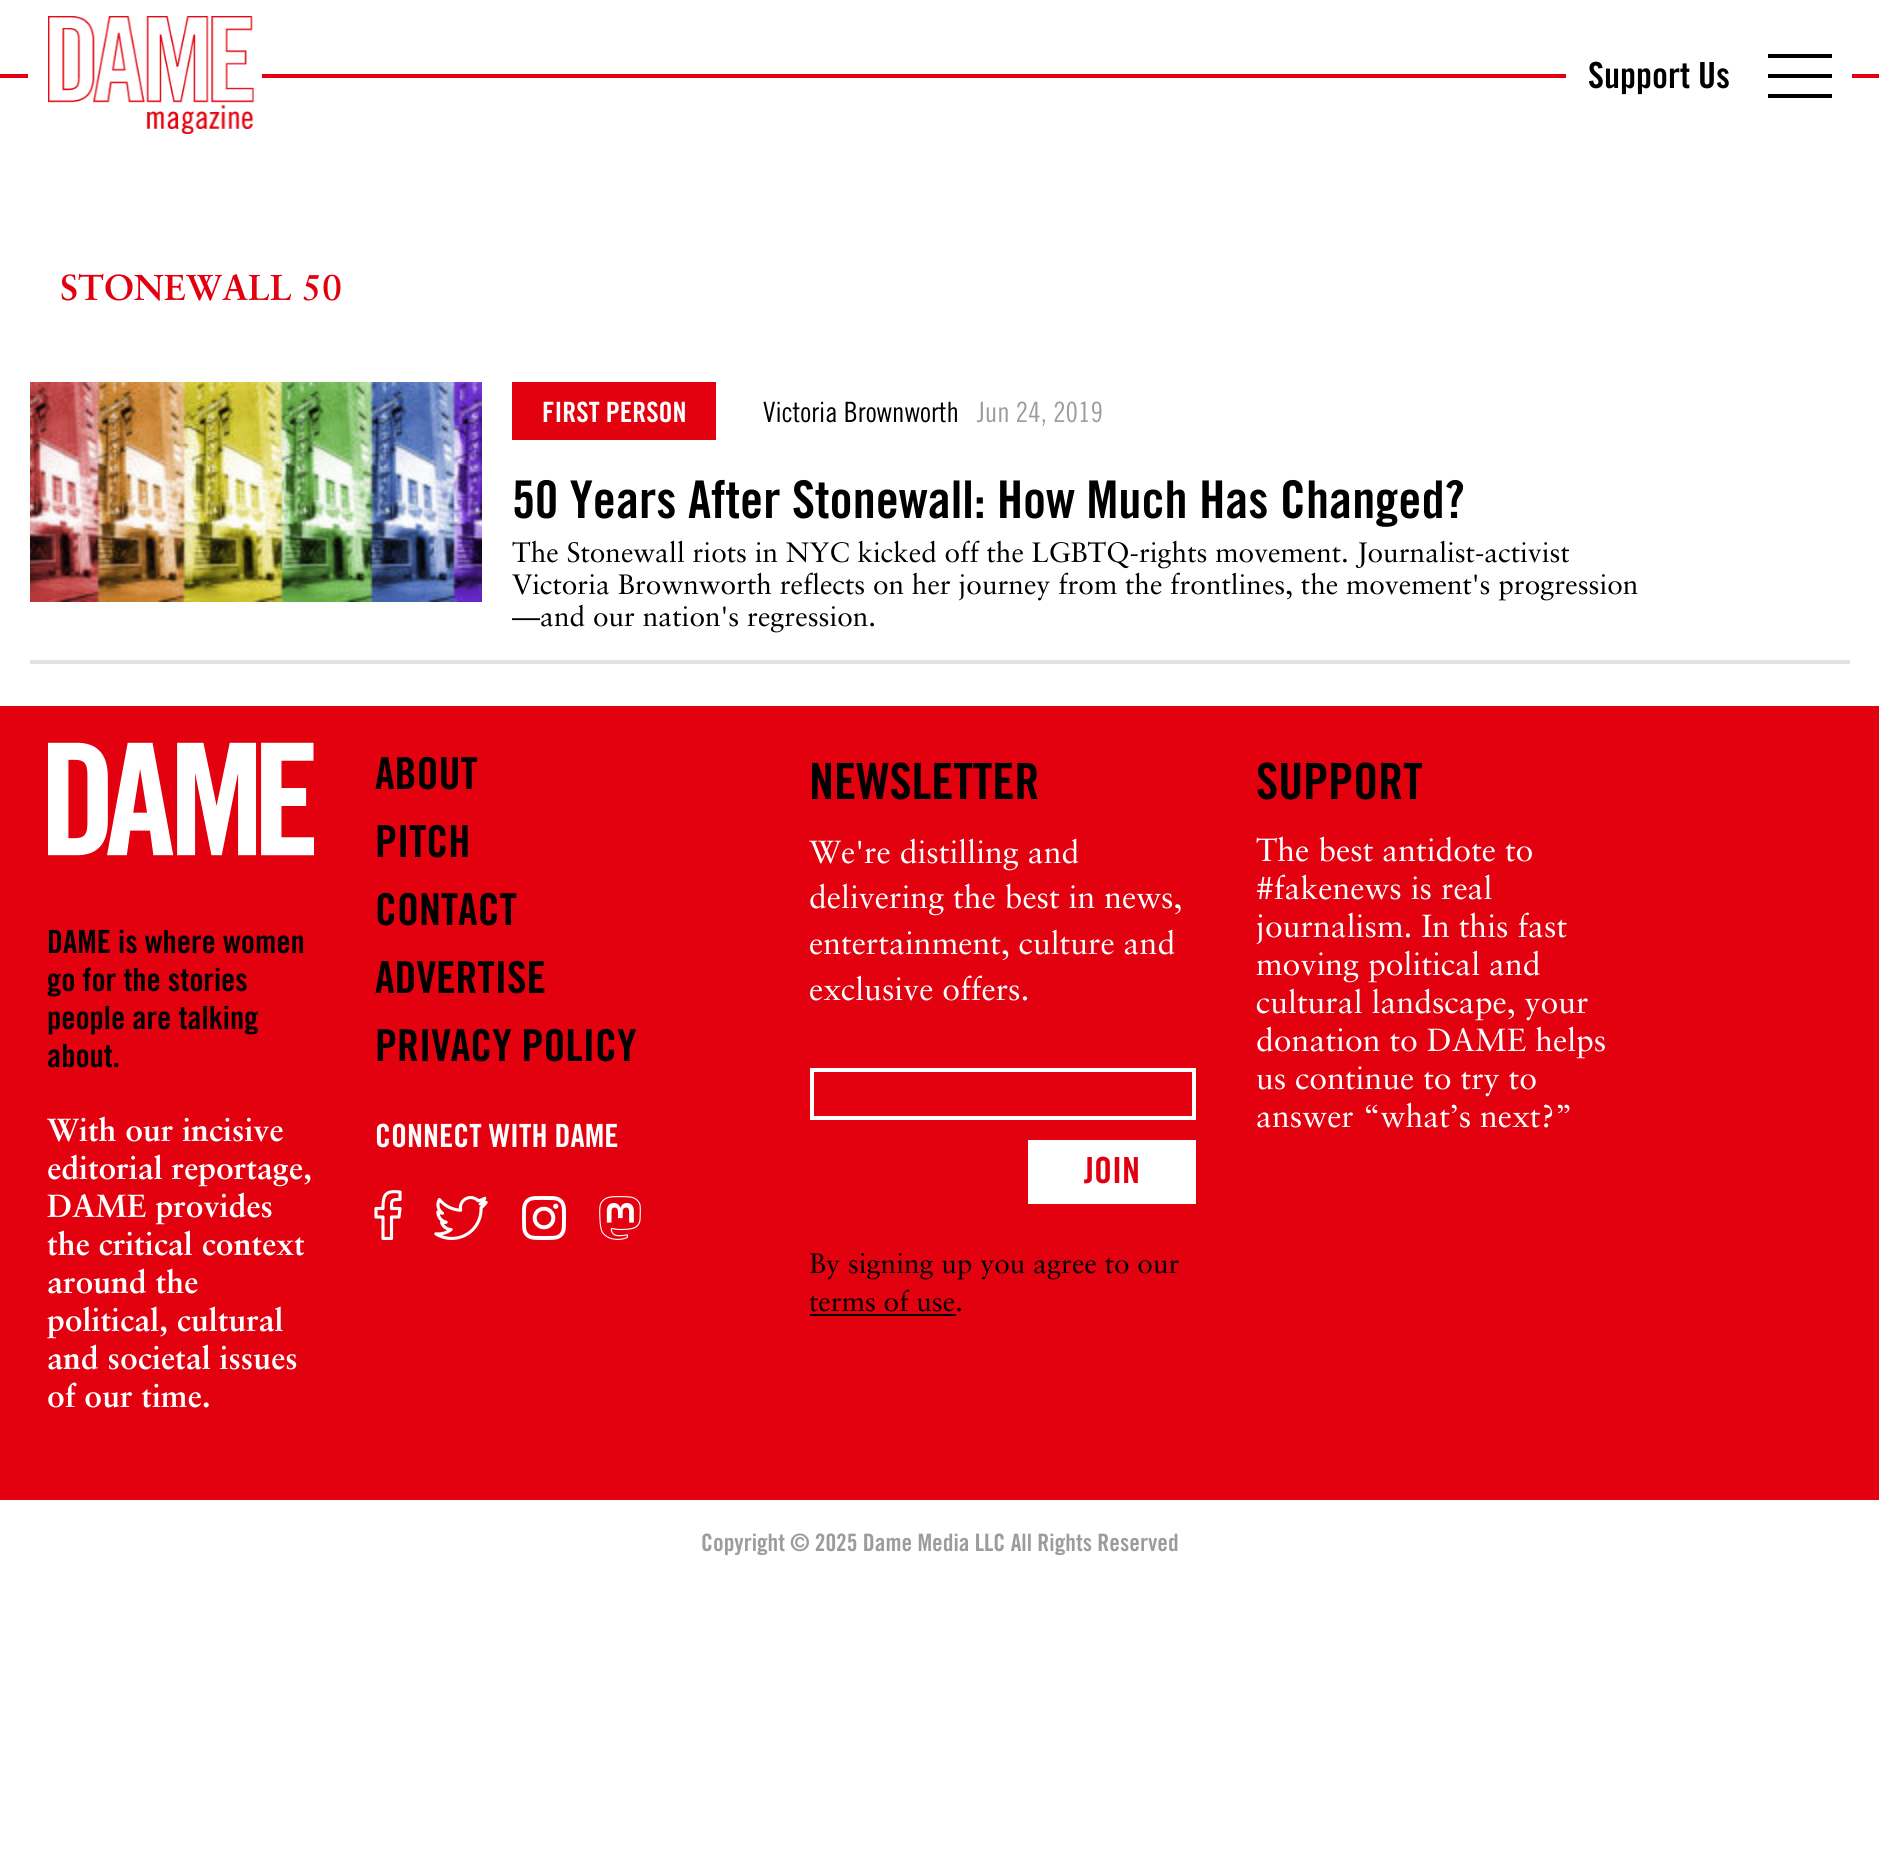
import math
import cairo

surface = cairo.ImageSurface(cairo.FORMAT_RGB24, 1879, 1865)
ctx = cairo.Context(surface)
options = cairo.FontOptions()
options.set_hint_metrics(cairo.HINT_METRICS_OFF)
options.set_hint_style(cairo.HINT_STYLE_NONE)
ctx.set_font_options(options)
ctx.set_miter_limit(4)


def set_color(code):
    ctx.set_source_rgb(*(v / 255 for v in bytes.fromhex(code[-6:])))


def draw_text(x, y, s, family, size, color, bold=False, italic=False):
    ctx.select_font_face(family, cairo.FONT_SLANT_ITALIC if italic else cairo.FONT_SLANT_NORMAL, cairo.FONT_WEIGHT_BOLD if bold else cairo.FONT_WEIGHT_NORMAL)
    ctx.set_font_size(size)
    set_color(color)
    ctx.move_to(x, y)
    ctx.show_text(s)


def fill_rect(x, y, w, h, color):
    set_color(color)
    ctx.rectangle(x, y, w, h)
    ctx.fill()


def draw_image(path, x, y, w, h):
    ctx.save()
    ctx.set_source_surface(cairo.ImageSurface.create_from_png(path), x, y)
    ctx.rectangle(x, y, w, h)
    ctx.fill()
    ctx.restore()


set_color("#ffffff")
ctx.paint()
fill_rect(0, 74, 1879, 4, "#e20010")
fill_rect(28, 74, 234, 4, "#ffffff")
draw_image("assets/img1.png", 48, 16, 206, 118)
fill_rect(1566, 74, 286, 4, "#ffffff")
draw_text(1588, 88, "Support Us", "Trade Gothic", 36, "#000000", bold=True)
fill_rect(1768, 94, 64, 4, "#000000")
fill_rect(1768, 54, 64, 4, "#000000")
fill_rect(1768, 74, 64, 4, "#000000")
draw_text(60, 300, "STONEWALL 50", "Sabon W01", 36, "#e20010", bold=True)
fill_rect(30, 660, 1820, 4, "#e2e2e2")
draw_image("assets/img2.png", 30, 382, 452, 220)
fill_rect(512, 382, 204, 58, "#e3010f")
draw_text(542, 422, "FIRST PERSON", "Trade Gothic", 28, "#ffffff", bold=True)
draw_text(763, 422, "Victoria Brownworth", "Trade Gothic", 28, "#000000")
draw_text(977, 422, "Jun 24, 2019", "Trade Gothic", 28, "#9c9c9c")
draw_text(512, 518, "50 Years After Stonewall: How Much Has Changed?", "Trade Gothic", 52, "#000000", bold=True)
draw_text(512, 562, "The Stonewall riots in NYC kicked off the LGBTQ-rights movement. Journalist-activist", "Sabon W01", 28, "#000000")
draw_text(512, 594, "Victoria Brownworth reflects on her journey from the frontlines, the movement's progression", "Sabon W01", 28, "#000000")
draw_text(512, 626, "—and our nation's regression.", "Sabon W01", 28, "#000000")
fill_rect(0, 706, 1879, 794, "#e3010f")
draw_image("assets/img3.png", 48, 742, 266, 114)
draw_text(47, 953, "DAME is where women", "Trade Gothic", 32, "#000000", bold=True)
draw_text(47, 991, "go for the stories", "Trade Gothic", 32, "#000000", bold=True)
draw_text(47, 1029, "people are talking", "Trade Gothic", 32, "#000000", bold=True)
draw_text(47, 1067, "about.", "Trade Gothic", 32, "#000000", bold=True)
draw_text(47, 1141, "With our incisive", "Sabon W01", 32, "#ffffff", bold=True)
draw_text(47, 1179, "editorial reportage,", "Sabon W01", 32, "#ffffff", bold=True)
draw_text(47, 1217, "DAME provides", "Sabon W01", 32, "#ffffff", bold=True)
draw_text(47, 1255, "the critical context", "Sabon W01", 32, "#ffffff", bold=True)
draw_text(47, 1293, "around the", "Sabon W01", 32, "#ffffff", bold=True)
draw_text(47, 1331, "political, cultural", "Sabon W01", 32, "#ffffff", bold=True)
draw_text(47, 1369, "and societal issues", "Sabon W01", 32, "#ffffff", bold=True)
draw_text(47, 1407, "of our time.", "Sabon W01", 32, "#ffffff", bold=True)
draw_text(375, 789, "ABOUT", "Trade Gothic", 44, "#000000", bold=True)
draw_text(375, 857, "PITCH", "Trade Gothic", 44, "#000000", bold=True)
draw_text(375, 925, "CONTACT", "Trade Gothic", 44, "#000000", bold=True)
draw_text(375, 993, "ADVERTISE", "Trade Gothic", 44, "#000000", bold=True)
draw_text(375, 1061, "PRIVACY POLICY", "Trade Gothic", 44, "#000000", bold=True)
draw_text(375, 1147, "CONNECT WITH DAME", "Trade Gothic", 32, "#ffffff", bold=True)
ctx.save()
ctx.rectangle(374, 1190, 28, 50)
ctx.clip()
ctx.new_path()
ctx.move_to(399, 1217)
ctx.line_to(400, 1208.5)
ctx.line_to(391.5, 1208.5)
ctx.curve_to(391.5, 1200, 391, 1199.5, 400, 1199.5)
ctx.line_to(400, 1192)
ctx.curve_to(385.5, 1190.5, 383, 1194, 383, 1208.5)
ctx.line_to(376, 1208.5)
ctx.line_to(376, 1217)
ctx.line_to(383, 1217)
ctx.line_to(383, 1238.5)
ctx.line_to(391.5, 1238.5)
ctx.line_to(391.5, 1217)
ctx.close_path()
ctx.set_line_width(3.1)
ctx.set_line_cap(cairo.LINE_CAP_ROUND)
ctx.set_line_join(cairo.LINE_JOIN_ROUND)
ctx.stroke()
ctx.restore()
draw_image("assets/img4.png", 434, 1196, 54, 44)
draw_image("assets/img5.png", 522, 1196, 44, 44)
draw_image("assets/img6.png", 599, 1196, 42, 44)
draw_text(809, 799, "NEWSLETTER", "Trade Gothic", 50, "#000000", bold=True)
draw_text(809, 863, "We're distilling and", "Sabon W01", 32, "#ffffff")
draw_text(809, 908, "delivering the best in news,", "Sabon W01", 32, "#ffffff")
draw_text(809, 954, "entertainment, culture and", "Sabon W01", 32, "#ffffff")
draw_text(809, 1000, "exclusive offers.", "Sabon W01", 32, "#ffffff")
ctx.rectangle(812, 1070, 382, 48)
ctx.set_line_width(4)
ctx.stroke()
fill_rect(1028, 1140, 168, 64, "#ffffff")
draw_text(1084, 1183, "JOIN", "Trade Gothic", 36, "#e20010", bold=True)
draw_text(809, 1273, "By signing up you agree to our", "Sabon W01", 28, "#000000")
draw_text(809, 1311, "terms of use.", "Sabon W01", 28, "#000000")
fill_rect(810, 1314, 146, 2, "#000000")
draw_text(1256, 799, "SUPPORT", "Trade Gothic", 50, "#000000", bold=True)
draw_text(1256, 861, "The best antidote to", "Sabon W01", 32, "#ffffff")
draw_text(1256, 899, "#fakenews is real", "Sabon W01", 32, "#ffffff")
draw_text(1256, 937, "journalism. In this fast", "Sabon W01", 32, "#ffffff")
draw_text(1256, 975, "moving political and", "Sabon W01", 32, "#ffffff")
draw_text(1256, 1013, "cultural landscape, your", "Sabon W01", 32, "#ffffff")
draw_text(1256, 1051, "donation to DAME helps", "Sabon W01", 32, "#ffffff")
draw_text(1256, 1089, "us continue to try to", "Sabon W01", 32, "#ffffff")
draw_text(1256, 1127, "answer “what’s next?”", "Sabon W01", 32, "#ffffff")
draw_text(701, 1551, "Copyright © 2025 Dame Media LLC All Rights Reserved", "Trade Gothic", 24, "#9c9c9c", bold=True)
surface.write_to_png("output.png")
